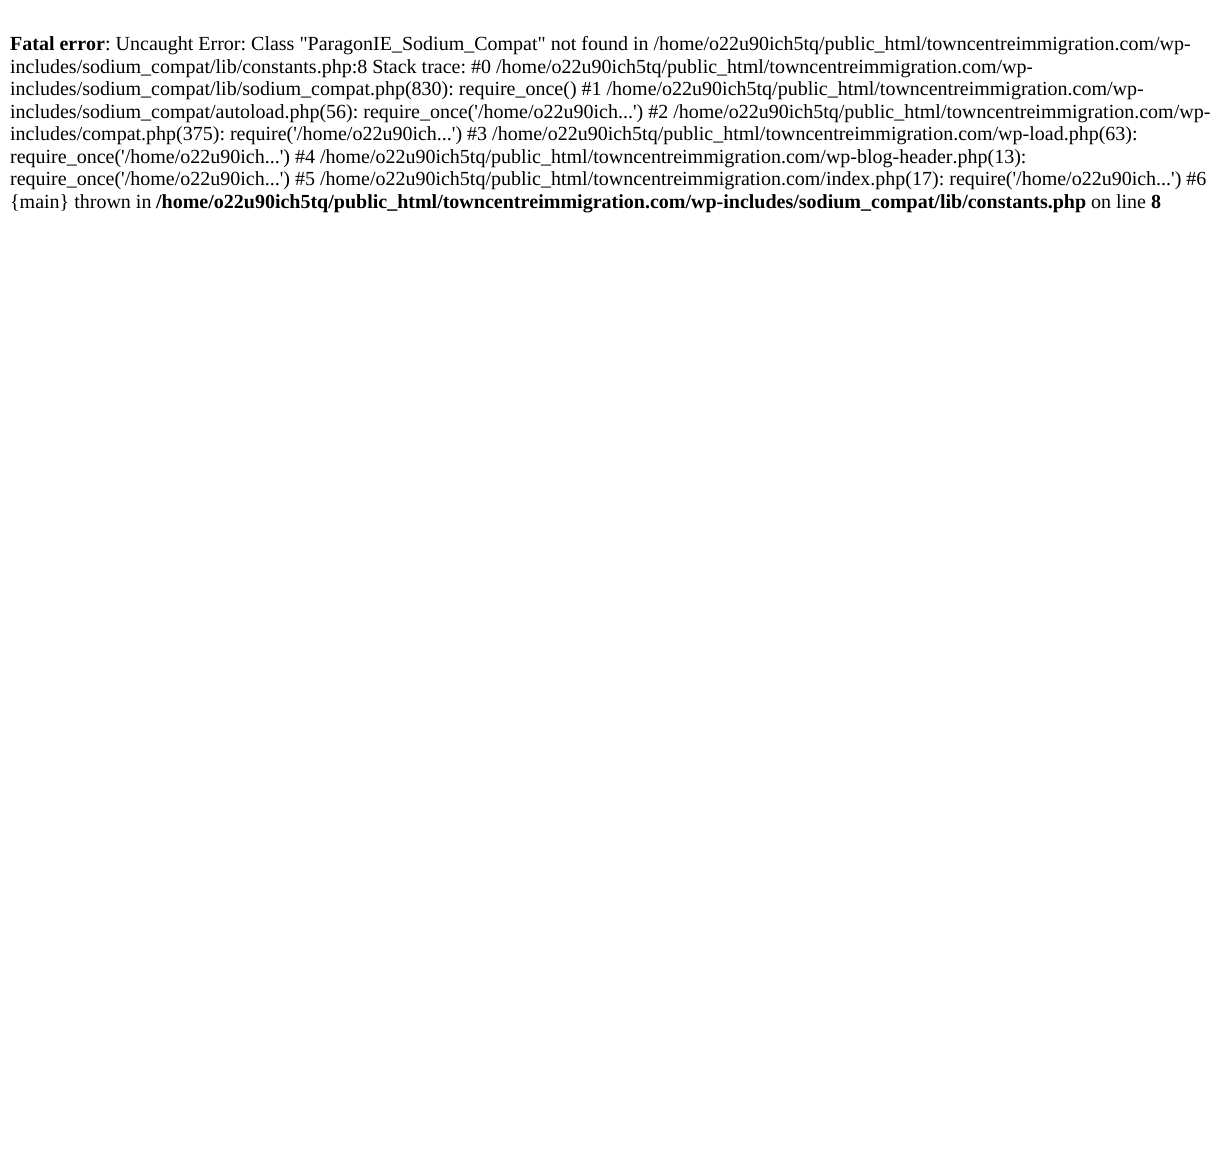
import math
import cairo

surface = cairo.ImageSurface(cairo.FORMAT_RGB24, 1224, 1166)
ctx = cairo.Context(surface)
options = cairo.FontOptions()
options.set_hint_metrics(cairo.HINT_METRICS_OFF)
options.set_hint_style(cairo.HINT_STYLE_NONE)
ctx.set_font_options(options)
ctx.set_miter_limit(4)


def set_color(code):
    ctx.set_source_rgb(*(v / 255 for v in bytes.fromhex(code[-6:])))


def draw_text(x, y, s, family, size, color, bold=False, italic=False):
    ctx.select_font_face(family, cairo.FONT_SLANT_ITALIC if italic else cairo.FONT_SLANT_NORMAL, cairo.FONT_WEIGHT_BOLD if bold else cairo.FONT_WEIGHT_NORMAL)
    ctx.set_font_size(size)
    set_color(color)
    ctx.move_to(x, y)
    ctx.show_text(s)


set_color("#ffffff")
ctx.paint()
draw_text(10, 50, "Fatal error", "Liberation Serif", 20, "#000000", bold=True)
draw_text(105, 50, ": Uncaught Error: Class \"ParagonIE_Sodium_Compat\" not found in /home/o22u90ich5tq/public_html/towncentreimmigration.com/wp-", "Liberation Serif", 20, "#000000")
draw_text(10, 73, "includes/sodium_compat/lib/constants.php:8 Stack trace: #0 /home/o22u90ich5tq/public_html/towncentreimmigration.com/wp-", "Liberation Serif", 20, "#000000")
draw_text(10, 95, "includes/sodium_compat/lib/sodium_compat.php(830): require_once() #1 /home/o22u90ich5tq/public_html/towncentreimmigration.com/wp-", "Liberation Serif", 20, "#000000")
draw_text(10, 118, "includes/sodium_compat/autoload.php(56): require_once('/home/o22u90ich...') #2 /home/o22u90ich5tq/public_html/towncentreimmigration.com/wp-", "Liberation Serif", 20, "#000000")
draw_text(10, 140, "includes/compat.php(375): require('/home/o22u90ich...') #3 /home/o22u90ich5tq/public_html/towncentreimmigration.com/wp-load.php(63):", "Liberation Serif", 20, "#000000")
draw_text(10, 163, "require_once('/home/o22u90ich...') #4 /home/o22u90ich5tq/public_html/towncentreimmigration.com/wp-blog-header.php(13):", "Liberation Serif", 20, "#000000")
draw_text(10, 185, "require_once('/home/o22u90ich...') #5 /home/o22u90ich5tq/public_html/towncentreimmigration.com/index.php(17): require('/home/o22u90ich...') #6", "Liberation Serif", 20, "#000000")
draw_text(10, 208, "{main} thrown in", "Liberation Serif", 20, "#000000")
draw_text(156, 208, "/home/o22u90ich5tq/public_html/towncentreimmigration.com/wp-includes/sodium_compat/lib/constants.php", "Liberation Serif", 20, "#000000", bold=True)
draw_text(1091, 208, "on line", "Liberation Serif", 20, "#000000")
draw_text(1151, 208, "8", "Liberation Serif", 20, "#000000", bold=True)
surface.write_to_png("output.png")
